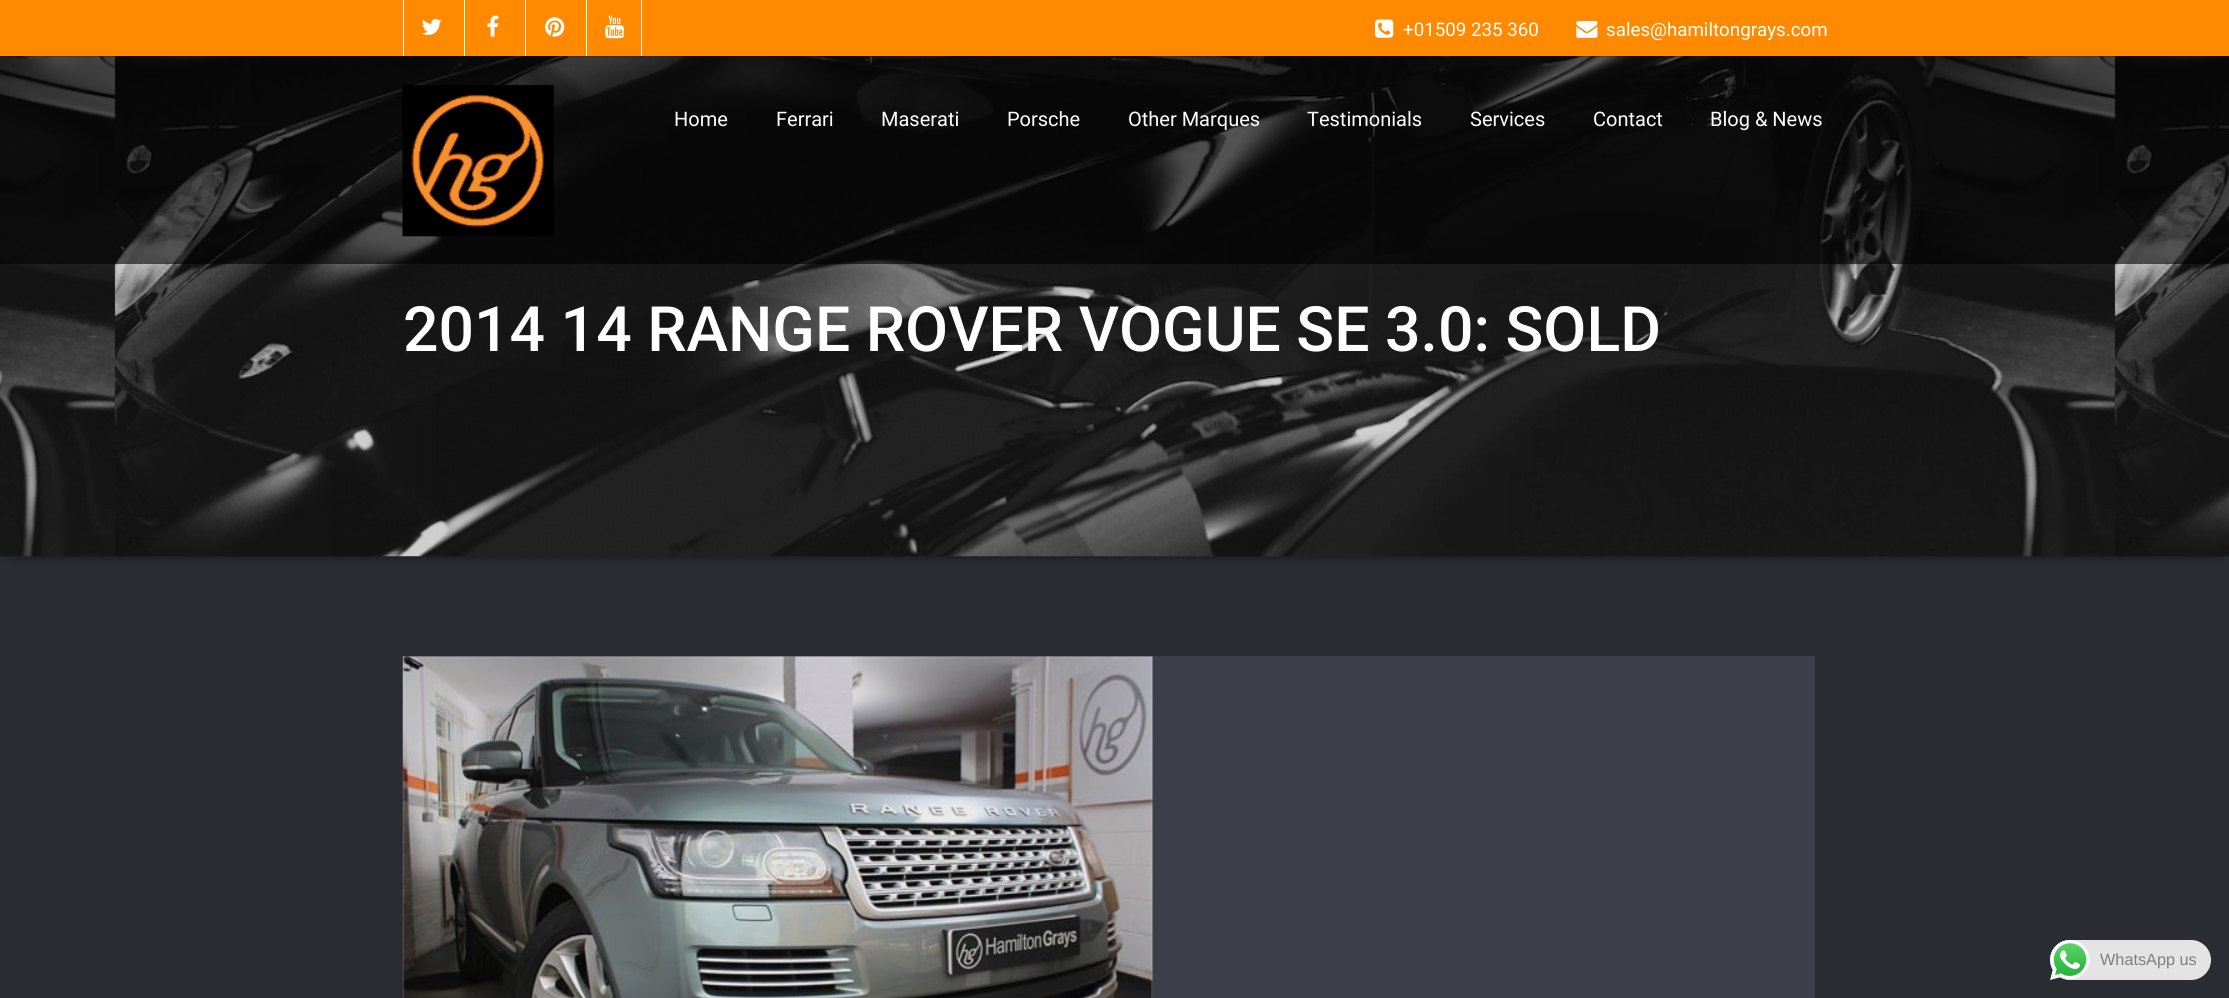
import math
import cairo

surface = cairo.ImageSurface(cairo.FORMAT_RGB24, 2229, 998)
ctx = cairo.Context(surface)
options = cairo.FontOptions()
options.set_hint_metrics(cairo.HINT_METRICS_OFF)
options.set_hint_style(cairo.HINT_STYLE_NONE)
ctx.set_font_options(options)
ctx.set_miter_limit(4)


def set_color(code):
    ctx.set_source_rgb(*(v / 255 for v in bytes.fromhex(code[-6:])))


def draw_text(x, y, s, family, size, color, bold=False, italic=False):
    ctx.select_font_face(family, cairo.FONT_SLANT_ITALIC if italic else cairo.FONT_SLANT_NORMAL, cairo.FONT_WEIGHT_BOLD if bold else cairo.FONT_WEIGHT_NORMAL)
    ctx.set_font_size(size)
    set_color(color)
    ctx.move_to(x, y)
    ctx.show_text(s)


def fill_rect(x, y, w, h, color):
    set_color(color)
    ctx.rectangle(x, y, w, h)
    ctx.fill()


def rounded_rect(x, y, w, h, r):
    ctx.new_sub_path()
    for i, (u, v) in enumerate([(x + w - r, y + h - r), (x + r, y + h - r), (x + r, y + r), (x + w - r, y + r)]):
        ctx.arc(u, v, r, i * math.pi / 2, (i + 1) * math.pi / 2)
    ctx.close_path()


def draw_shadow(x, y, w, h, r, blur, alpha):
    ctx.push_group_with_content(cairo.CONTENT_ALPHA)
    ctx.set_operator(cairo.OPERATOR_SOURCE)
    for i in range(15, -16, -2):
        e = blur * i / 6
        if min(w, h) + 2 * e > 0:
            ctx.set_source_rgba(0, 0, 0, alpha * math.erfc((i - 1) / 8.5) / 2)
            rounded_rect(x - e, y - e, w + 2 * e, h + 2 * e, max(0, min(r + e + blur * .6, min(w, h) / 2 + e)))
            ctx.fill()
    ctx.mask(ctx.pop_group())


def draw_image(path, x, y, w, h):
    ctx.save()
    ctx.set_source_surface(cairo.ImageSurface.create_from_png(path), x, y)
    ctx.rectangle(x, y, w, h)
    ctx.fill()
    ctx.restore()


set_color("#2a2c33")
ctx.paint()
fill_rect(0, 0, 2229, 56, "#ff8a00")
fill_rect(403, 0, 1, 56, "#ffffff")
draw_image("assets/img1.png", 422, 18, 20, 17)
fill_rect(464, 0, 1, 56, "#ffffff")
draw_image("assets/img2.png", 487, 15, 12, 22)
fill_rect(525, 0, 1, 56, "#ffffff")
draw_image("assets/img3.png", 545, 17, 20, 20)
fill_rect(641, 0, 1, 56, "#ffffff")
fill_rect(586, 0, 1, 56, "#ffffff")
draw_image("assets/img4.png", 605, 15, 19, 24)
draw_image("assets/img5.png", 1375, 19, 19, 19)
draw_text(1403, 36, "+01509 235 360", "Roboto", 18.75, "#ffffff")
draw_image("assets/img6.png", 1576, 21, 22, 17)
draw_text(1606, 36, "sales@hamiltongrays.com", "Roboto", 18.75, "#ffffff")
set_color("#000000")
draw_shadow(13, 78, 2205, 475, 0, 6, 1)
draw_image("assets/img8.png", 0, 56, 2229, 501)
ctx.set_source_rgba(0, 0, 0, 0.6)
ctx.rectangle(0, 56, 2229, 208)
ctx.fill()
draw_image("assets/img7.png", 402, 85, 152, 152)
draw_text(674, 126, "Home", "Roboto", 20, "#ffffff")
draw_text(776, 126, "Ferrari", "Roboto", 20, "#ffffff")
draw_text(881, 126, "Maserati", "Roboto", 20, "#ffffff")
draw_text(1007, 126, "Porsche", "Roboto", 20, "#ffffff")
draw_text(1128, 126, "Other Marques", "Roboto", 20, "#ffffff")
draw_text(1307, 126, "Testimonials", "Roboto", 20, "#ffffff")
draw_text(1470, 126, "Services", "Roboto", 20, "#ffffff")
draw_text(1593, 126, "Contact", "Roboto", 20, "#ffffff")
draw_text(1710, 126, "Blog & News", "Roboto", 20, "#ffffff")
draw_text(403, 351, "2014 14 RANGE ROVER VOGUE SE 3.0: SOLD", "Roboto Medium", 62.5, "#ffffff")
fill_rect(403, 656, 1412, 342, "#3c3f49")
draw_image("assets/img9.png", 402, 656, 751, 342)
set_color("#e4e4e4")
rounded_rect(2050, 940, 161, 40, 20)
ctx.fill()
draw_image("assets/img10.png", 2050, 940, 40, 40)
draw_text(2100, 965, "WhatsApp us", "Liberation Sans", 16.25, "#7f7d7d")
surface.write_to_png("output.png")
